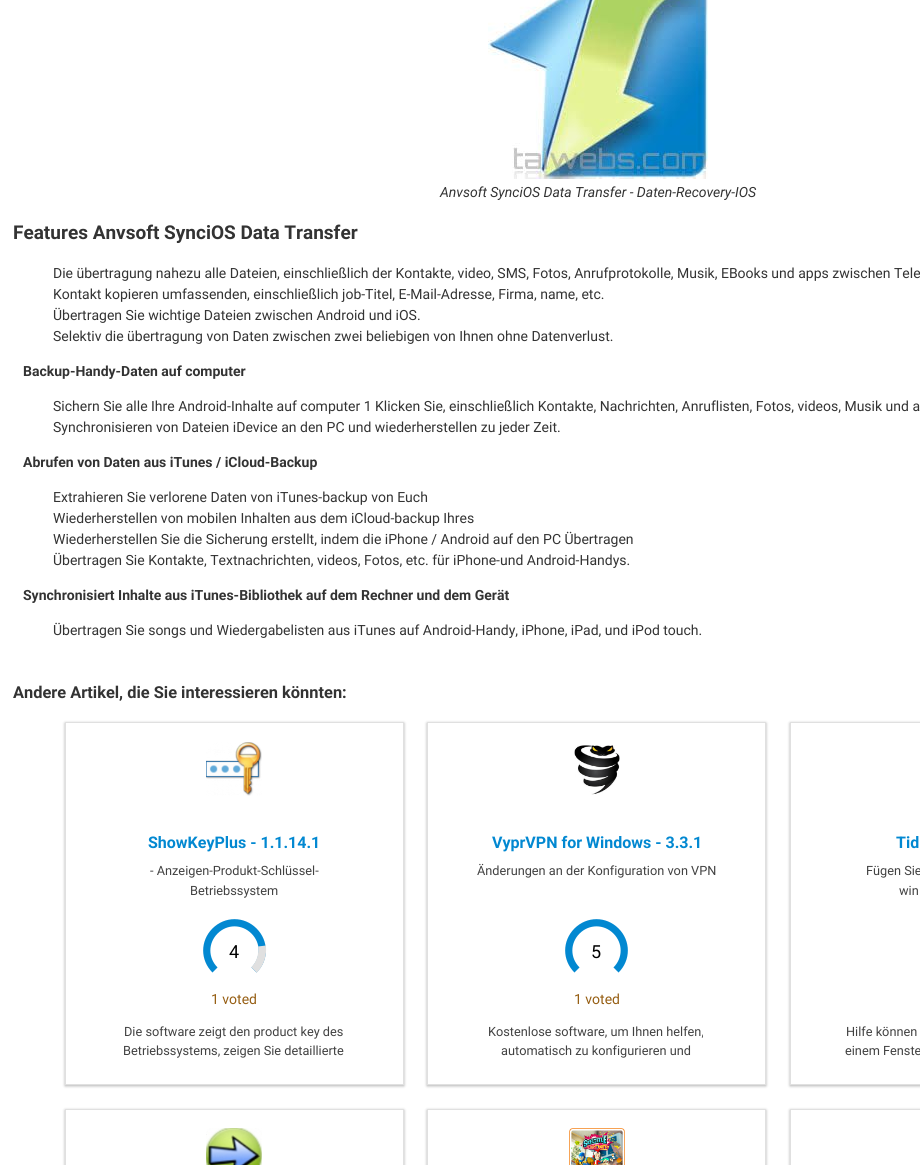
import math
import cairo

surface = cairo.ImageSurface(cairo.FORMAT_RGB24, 920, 1165)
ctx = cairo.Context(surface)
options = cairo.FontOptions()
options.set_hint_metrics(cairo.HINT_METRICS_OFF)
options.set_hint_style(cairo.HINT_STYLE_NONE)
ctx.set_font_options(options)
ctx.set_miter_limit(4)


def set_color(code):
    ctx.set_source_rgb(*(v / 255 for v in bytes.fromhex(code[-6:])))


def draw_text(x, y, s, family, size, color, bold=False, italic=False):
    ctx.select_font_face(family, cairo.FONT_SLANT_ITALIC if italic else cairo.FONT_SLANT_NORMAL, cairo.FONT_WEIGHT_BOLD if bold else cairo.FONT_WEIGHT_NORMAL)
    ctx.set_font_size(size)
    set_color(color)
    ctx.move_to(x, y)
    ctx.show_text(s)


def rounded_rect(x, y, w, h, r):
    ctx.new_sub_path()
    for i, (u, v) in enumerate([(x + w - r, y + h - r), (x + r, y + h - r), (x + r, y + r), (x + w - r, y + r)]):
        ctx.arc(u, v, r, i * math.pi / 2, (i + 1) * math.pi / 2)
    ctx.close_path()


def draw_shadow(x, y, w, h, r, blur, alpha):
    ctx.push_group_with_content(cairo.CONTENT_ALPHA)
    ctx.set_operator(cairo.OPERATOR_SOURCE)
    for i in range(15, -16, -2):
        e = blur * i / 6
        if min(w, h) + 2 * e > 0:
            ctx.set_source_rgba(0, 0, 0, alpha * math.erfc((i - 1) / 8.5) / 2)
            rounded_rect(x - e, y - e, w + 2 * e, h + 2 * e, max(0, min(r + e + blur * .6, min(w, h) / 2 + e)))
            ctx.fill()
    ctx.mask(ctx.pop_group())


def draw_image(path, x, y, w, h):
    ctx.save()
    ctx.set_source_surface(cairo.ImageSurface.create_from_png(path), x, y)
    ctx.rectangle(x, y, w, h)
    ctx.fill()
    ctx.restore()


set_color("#ffffff")
ctx.paint()
draw_image("assets/img1.png", 488, 0, 220, 179)
draw_text(440, 197, "Anvsoft SynciOS Data Transfer - Daten-Recovery-IOS", "Roboto", 14, "#333333", italic=True)
draw_text(13, 239, "Features Anvsoft SynciOS Data Transfer", "Roboto", 19, "#333333", bold=True)
draw_text(53, 278, "Die übertragung nahezu alle Dateien, einschließlich der Kontakte, video, SMS, Fotos, Anrufprotokolle, Musik, EBooks und apps zwischen Tele", "Roboto", 14, "#333333")
draw_text(53, 299, "Kontakt kopieren umfassenden, einschließlich job-Titel, E-Mail-Adresse, Firma, name, etc.", "Roboto", 14, "#333333")
draw_text(53, 320, "Übertragen Sie wichtige Dateien zwischen Android und iOS.", "Roboto", 14, "#333333")
draw_text(53, 341, "Selektiv die übertragung von Daten zwischen zwei beliebigen von Ihnen ohne Datenverlust.", "Roboto", 14, "#333333")
draw_text(23, 376, "Backup-Handy-Daten auf computer", "Roboto", 14, "#333333", bold=True)
draw_text(53, 411, "Sichern Sie alle Ihre Android-Inhalte auf computer 1 Klicken Sie, einschließlich Kontakte, Nachrichten, Anruflisten, Fotos, videos, Musik und a", "Roboto", 14, "#333333")
draw_text(53, 432, "Synchronisieren von Dateien iDevice an den PC und wiederherstellen zu jeder Zeit.", "Roboto", 14, "#333333")
draw_text(23, 467, "Abrufen von Daten aus iTunes / iCloud-Backup", "Roboto", 14, "#333333", bold=True)
draw_text(53, 502, "Extrahieren Sie verlorene Daten von iTunes-backup von Euch", "Roboto", 14, "#333333")
draw_text(53, 523, "Wiederherstellen von mobilen Inhalten aus dem iCloud-backup Ihres", "Roboto", 14, "#333333")
draw_text(53, 544, "Wiederherstellen Sie die Sicherung erstellt, indem die iPhone / Android auf den PC Übertragen", "Roboto", 14, "#333333")
draw_text(53, 565, "Übertragen Sie Kontakte, Textnachrichten, videos, Fotos, etc. für iPhone-und Android-Handys.", "Roboto", 14, "#333333")
draw_text(23, 600, "Synchronisiert Inhalte aus iTunes-Bibliothek auf dem Rechner und dem Gerät", "Roboto", 14, "#333333", bold=True)
draw_text(53, 635, "Übertragen Sie songs und Wiedergabelisten aus iTunes auf Android-Handy, iPhone, iPad, und iPod touch.", "Roboto", 14, "#333333")
draw_text(13, 698, "Andere Artikel, die Sie interessieren könnten:", "Roboto", 16.4, "#333333", bold=True)
ctx.save()
ctx.set_fill_rule(cairo.FILL_RULE_EVEN_ODD)
ctx.new_path()
ctx.move_to(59, 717)
ctx.line_to(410, 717)
ctx.line_to(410, 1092)
ctx.line_to(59, 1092)
ctx.close_path()
ctx.move_to(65, 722)
ctx.line_to(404, 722)
ctx.line_to(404, 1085)
ctx.line_to(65, 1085)
ctx.close_path()
ctx.clip()
set_color("#000000")
draw_shadow(65, 723, 339, 363, 0, 1.5, 0.3)
ctx.restore()
ctx.rectangle(65.5, 722.5, 338, 362)
set_color("#e0e0e0")
ctx.set_line_width(1)
ctx.stroke()
draw_image("assets/img2.png", 206, 742, 56, 54)
draw_text(148, 848, "ShowKeyPlus - 1.1.14.1", "Roboto", 16, "#0288d1", bold=True)
draw_text(150, 875, "- Anzeigen-Produkt-Schlüssel-", "Roboto", 12.75, "#424242")
draw_text(190, 895, "Betriebssystem", "Roboto", 12.75, "#424242")
ctx.new_path()
ctx.move_to(254, 970)
ctx.curve_to(265, 959, 265, 942, 254, 931)
ctx.curve_to(243, 920, 226, 920, 215, 931)
ctx.curve_to(204, 942, 204, 959, 215, 970)
set_color("#0288d1")
ctx.set_line_width(7.2)
ctx.stroke()
draw_text(229, 958, "4", "Roboto", 18, "#000000")
ctx.new_path()
ctx.move_to(254, 970)
ctx.curve_to(260.5, 963.5, 263, 954.5, 262, 946)
set_color("#e0e0e0")
ctx.set_line_width(7.8)
ctx.stroke()
draw_text(211, 1004, "1 voted", "Roboto", 14, "#965e13")
draw_text(124, 1036, "Die software zeigt den product key des", "Roboto", 12.75, "#424242")
draw_text(123, 1055, "Betriebssystems, zeigen Sie detaillierte", "Roboto", 12.75, "#424242")
ctx.save()
ctx.set_fill_rule(cairo.FILL_RULE_EVEN_ODD)
ctx.new_path()
ctx.move_to(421, 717)
ctx.line_to(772, 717)
ctx.line_to(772, 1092)
ctx.line_to(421, 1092)
ctx.close_path()
ctx.move_to(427, 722)
ctx.line_to(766, 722)
ctx.line_to(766, 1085)
ctx.line_to(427, 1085)
ctx.close_path()
ctx.clip()
set_color("#000000")
draw_shadow(427, 723, 339, 363, 0, 1.5, 0.3)
ctx.restore()
ctx.rectangle(427.5, 722.5, 338, 362)
set_color("#e0e0e0")
ctx.set_line_width(1)
ctx.stroke()
draw_image("assets/img3.png", 574, 745, 46, 50)
draw_text(492, 848, "VyprVPN for Windows - 3.3.1", "Roboto", 16, "#0288d1", bold=True)
draw_text(477, 875, "Änderungen an der Konfiguration von VPN", "Roboto", 12.75, "#424242")
ctx.new_path()
ctx.move_to(616, 970)
ctx.curve_to(627, 959, 627, 942, 616, 931)
ctx.curve_to(605, 920, 588, 920, 577, 931)
ctx.curve_to(566, 942, 566, 959, 577, 970)
set_color("#0288d1")
ctx.set_line_width(7.2)
ctx.stroke()
draw_text(591, 958, "5", "Roboto", 18, "#000000")
draw_text(574, 1004, "1 voted", "Roboto", 14, "#965e13")
draw_text(488, 1036, "Kostenlose software, um Ihnen helfen,", "Roboto", 12.75, "#424242")
draw_text(501, 1055, "automatisch zu konfigurieren und", "Roboto", 12.75, "#424242")
ctx.save()
ctx.set_fill_rule(cairo.FILL_RULE_EVEN_ODD)
ctx.new_path()
ctx.move_to(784, 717)
ctx.line_to(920, 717)
ctx.line_to(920, 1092)
ctx.line_to(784, 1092)
ctx.close_path()
ctx.move_to(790, 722)
ctx.line_to(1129, 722)
ctx.line_to(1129, 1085)
ctx.line_to(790, 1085)
ctx.close_path()
ctx.clip()
set_color("#000000")
draw_shadow(790, 723, 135, 363, 0, 1.5, 0.3)
ctx.restore()
ctx.rectangle(790.5, 722.5, 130, 362)
set_color("#e0e0e0")
ctx.set_line_width(1)
ctx.stroke()
draw_text(896, 848, "Tid", "Roboto", 16, "#0288d1", bold=True)
draw_text(866, 875, "Fügen Sie", "Roboto", 12.75, "#424242")
draw_text(899, 895, "win", "Roboto", 12.75, "#424242")
draw_text(846, 1036, "Hilfe können", "Roboto", 12.75, "#424242")
draw_text(845, 1055, "einem Fenste", "Roboto", 12.75, "#424242")
ctx.save()
ctx.set_fill_rule(cairo.FILL_RULE_EVEN_ODD)
ctx.new_path()
ctx.move_to(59, 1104)
ctx.line_to(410, 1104)
ctx.line_to(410, 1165)
ctx.line_to(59, 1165)
ctx.close_path()
ctx.move_to(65, 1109)
ctx.line_to(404, 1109)
ctx.line_to(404, 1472)
ctx.line_to(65, 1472)
ctx.close_path()
ctx.clip()
set_color("#000000")
draw_shadow(65, 1110, 339, 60, 0, 1.5, 0.3)
ctx.restore()
ctx.rectangle(65.5, 1109.5, 338, 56)
set_color("#e0e0e0")
ctx.stroke()
draw_image("assets/img4.png", 206, 1128, 56, 37)
ctx.save()
ctx.set_fill_rule(cairo.FILL_RULE_EVEN_ODD)
ctx.new_path()
ctx.move_to(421, 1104)
ctx.line_to(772, 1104)
ctx.line_to(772, 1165)
ctx.line_to(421, 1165)
ctx.close_path()
ctx.move_to(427, 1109)
ctx.line_to(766, 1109)
ctx.line_to(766, 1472)
ctx.line_to(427, 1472)
ctx.close_path()
ctx.clip()
set_color("#000000")
draw_shadow(427, 1110, 339, 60, 0, 1.5, 0.3)
ctx.restore()
ctx.rectangle(427.5, 1109.5, 338, 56)
ctx.stroke()
draw_image("assets/img5.png", 569, 1128, 56, 37)
ctx.save()
ctx.set_fill_rule(cairo.FILL_RULE_EVEN_ODD)
ctx.new_path()
ctx.move_to(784, 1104)
ctx.line_to(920, 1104)
ctx.line_to(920, 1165)
ctx.line_to(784, 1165)
ctx.close_path()
ctx.move_to(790, 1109)
ctx.line_to(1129, 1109)
ctx.line_to(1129, 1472)
ctx.line_to(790, 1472)
ctx.close_path()
ctx.clip()
set_color("#000000")
draw_shadow(790, 1110, 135, 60, 0, 1.5, 0.3)
ctx.restore()
ctx.rectangle(790.5, 1109.5, 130, 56)
ctx.stroke()
surface.write_to_png("output.png")
